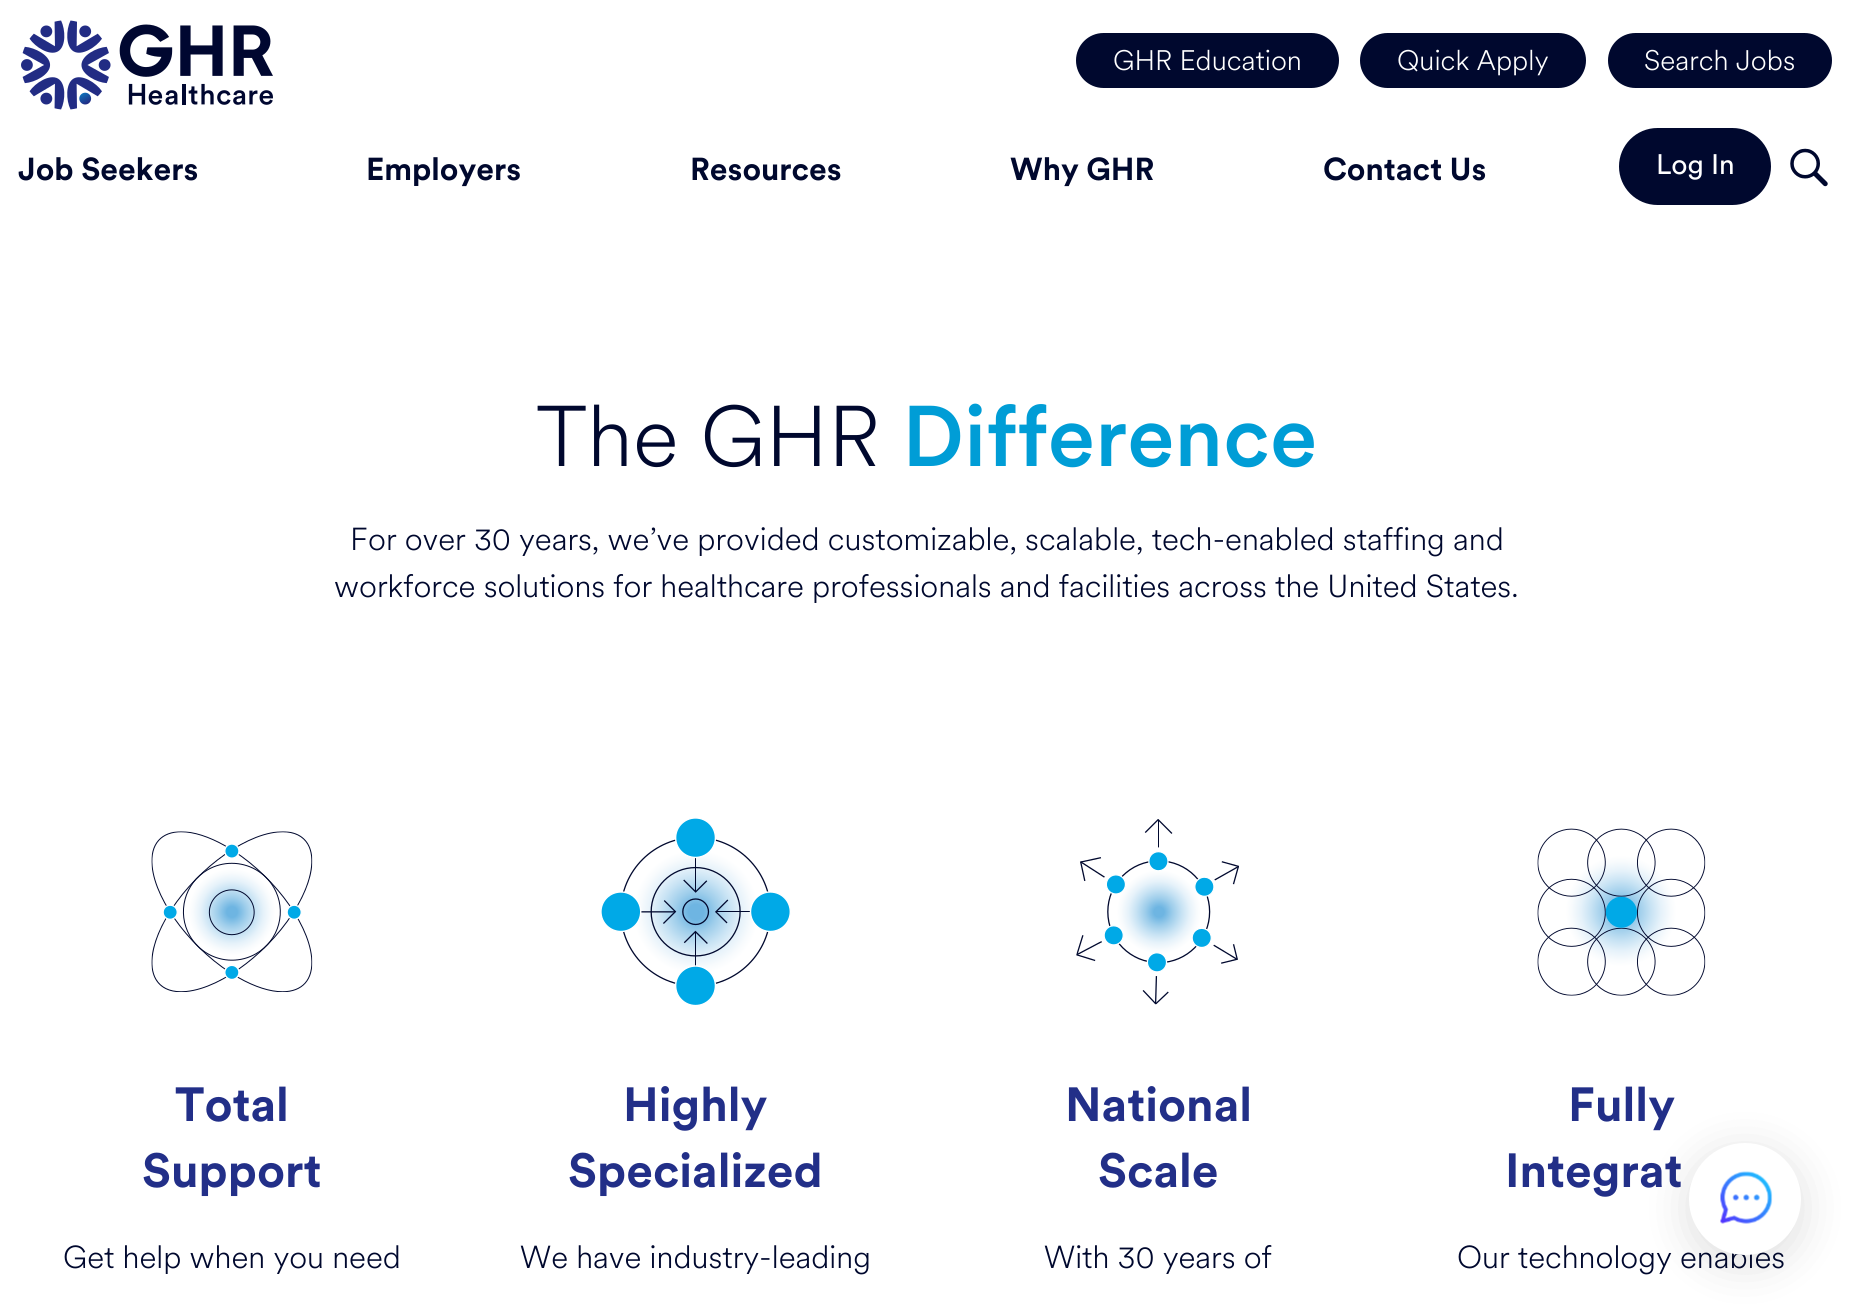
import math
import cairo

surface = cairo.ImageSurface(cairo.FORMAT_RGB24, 1853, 1306)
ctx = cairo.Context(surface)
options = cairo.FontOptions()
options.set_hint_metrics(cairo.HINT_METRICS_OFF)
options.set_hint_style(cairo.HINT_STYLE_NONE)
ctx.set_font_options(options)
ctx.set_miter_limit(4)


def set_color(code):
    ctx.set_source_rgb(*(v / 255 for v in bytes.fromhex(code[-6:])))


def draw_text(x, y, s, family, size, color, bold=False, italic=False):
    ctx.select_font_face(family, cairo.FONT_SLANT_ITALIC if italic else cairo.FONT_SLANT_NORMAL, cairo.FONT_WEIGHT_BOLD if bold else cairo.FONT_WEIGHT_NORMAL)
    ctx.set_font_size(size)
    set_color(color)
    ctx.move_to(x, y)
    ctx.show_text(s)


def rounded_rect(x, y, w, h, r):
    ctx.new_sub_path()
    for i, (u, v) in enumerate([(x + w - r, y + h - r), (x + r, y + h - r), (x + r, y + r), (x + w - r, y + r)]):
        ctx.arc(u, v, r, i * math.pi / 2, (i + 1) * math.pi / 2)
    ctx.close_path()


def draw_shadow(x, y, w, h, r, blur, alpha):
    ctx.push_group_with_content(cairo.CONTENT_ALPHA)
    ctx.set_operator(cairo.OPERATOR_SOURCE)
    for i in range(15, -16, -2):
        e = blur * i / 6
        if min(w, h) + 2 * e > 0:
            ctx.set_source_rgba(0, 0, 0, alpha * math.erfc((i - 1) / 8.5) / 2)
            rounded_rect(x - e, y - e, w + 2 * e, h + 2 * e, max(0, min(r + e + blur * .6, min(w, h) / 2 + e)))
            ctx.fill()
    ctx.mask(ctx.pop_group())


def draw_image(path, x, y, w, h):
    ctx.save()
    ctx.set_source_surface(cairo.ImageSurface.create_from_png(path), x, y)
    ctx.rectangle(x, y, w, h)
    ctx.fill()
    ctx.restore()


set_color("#ffffff")
ctx.paint()
draw_image("assets/img1.png", 21, 20, 252, 90)
set_color("#00082e")
rounded_rect(1077, 34, 261, 53, 26.5)
ctx.fill_preserve()
ctx.stroke()
draw_text(1113, 70, "GHR Education", "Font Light", 28, "#ffffff")
set_color("#00082e")
rounded_rect(1361, 34, 224, 53, 26.5)
ctx.fill_preserve()
ctx.stroke()
draw_text(1397, 70, "Quick Apply", "Font Light", 28, "#ffffff")
set_color("#00082e")
rounded_rect(1609, 34, 222, 53, 26.5)
ctx.fill_preserve()
ctx.stroke()
draw_text(1644, 70, "Search Jobs", "Font Light", 28, "#ffffff")
draw_text(18, 180, "Job Seekers", "Font", 31.5, "#00082e", bold=True)
draw_text(366, 180, "Employers", "Font", 31.5, "#00082e", bold=True)
draw_text(690, 180, "Resources", "Font", 31.5, "#00082e", bold=True)
draw_text(1010, 180, "Why GHR", "Font", 31.5, "#00082e", bold=True)
draw_text(1323, 180, "Contact Us", "Font", 31.5, "#00082e", bold=True)
rounded_rect(1620, 129, 150, 75, 37.5)
ctx.fill_preserve()
ctx.stroke()
draw_text(1656, 174, "Log In", "Font", 28, "#ffffff")
draw_image("assets/img2.png", 1790, 148, 38, 39)
draw_text(536, 466, "The GHR", "Font Light", 85, "#00082e")
draw_text(902, 466, "Difference", "Font Medium", 85, "#009dd6")
draw_text(350, 550, "For over 30 years, we’ve provided customizable, scalable, tech-enabled staffing and", "Font Light", 31.5, "#00082e")
draw_text(334, 597, "workforce solutions for healthcare professionals and facilities across the United States.", "Font Light", 31.5, "#00082e")
draw_image("assets/img3.png", 151, 831, 162, 161)
draw_text(175, 1121, "Total", "Font", 47.5, "#222f88", bold=True)
draw_text(142, 1187, "Support", "Font", 47.5, "#222f88", bold=True)
draw_text(63, 1268, "Get help when you need", "Font Light", 31.5, "#00082e")
draw_image("assets/img4.png", 601, 817, 190, 189)
draw_text(623, 1121, "Highly", "Font", 47.5, "#222f88", bold=True)
draw_text(568, 1187, "Specialized", "Font", 47.5, "#222f88", bold=True)
draw_text(520, 1268, "We have industry-leading", "Font Light", 31.5, "#00082e")
draw_image("assets/img5.png", 1076, 819, 163, 186)
draw_text(1065, 1121, "National", "Font", 47.5, "#222f88", bold=True)
draw_text(1098, 1187, "Scale", "Font", 47.5, "#222f88", bold=True)
draw_text(1044, 1268, "With 30 years of", "Font Light", 31.5, "#00082e")
draw_image("assets/img6.png", 1537, 828, 169, 168)
draw_text(1568, 1121, "Fully", "Font", 47.5, "#222f88", bold=True)
draw_text(1505, 1187, "Integrat", "Font", 47.5, "#222f88", bold=True)
draw_text(1457, 1268, "Our technology enables", "Font Light", 31.5, "#00082e")
ctx.new_path()
ctx.arc(1744, 1198, 54, 0, 2 * math.pi)
set_color("#ffffff")
ctx.stroke()
ctx.arc(1744, 1198, 54, 0, 2 * math.pi)
ctx.stroke()
set_color("#000000")
draw_shadow(1689, 1152, 112, 112, 56, 22, 0.13)
set_color("#ffffff")
ctx.arc(1745, 1199, 56, 0, 2 * math.pi)
ctx.fill()
draw_image("assets/img7.png", 1720, 1171, 53, 53)
surface.write_to_png("output.png")
